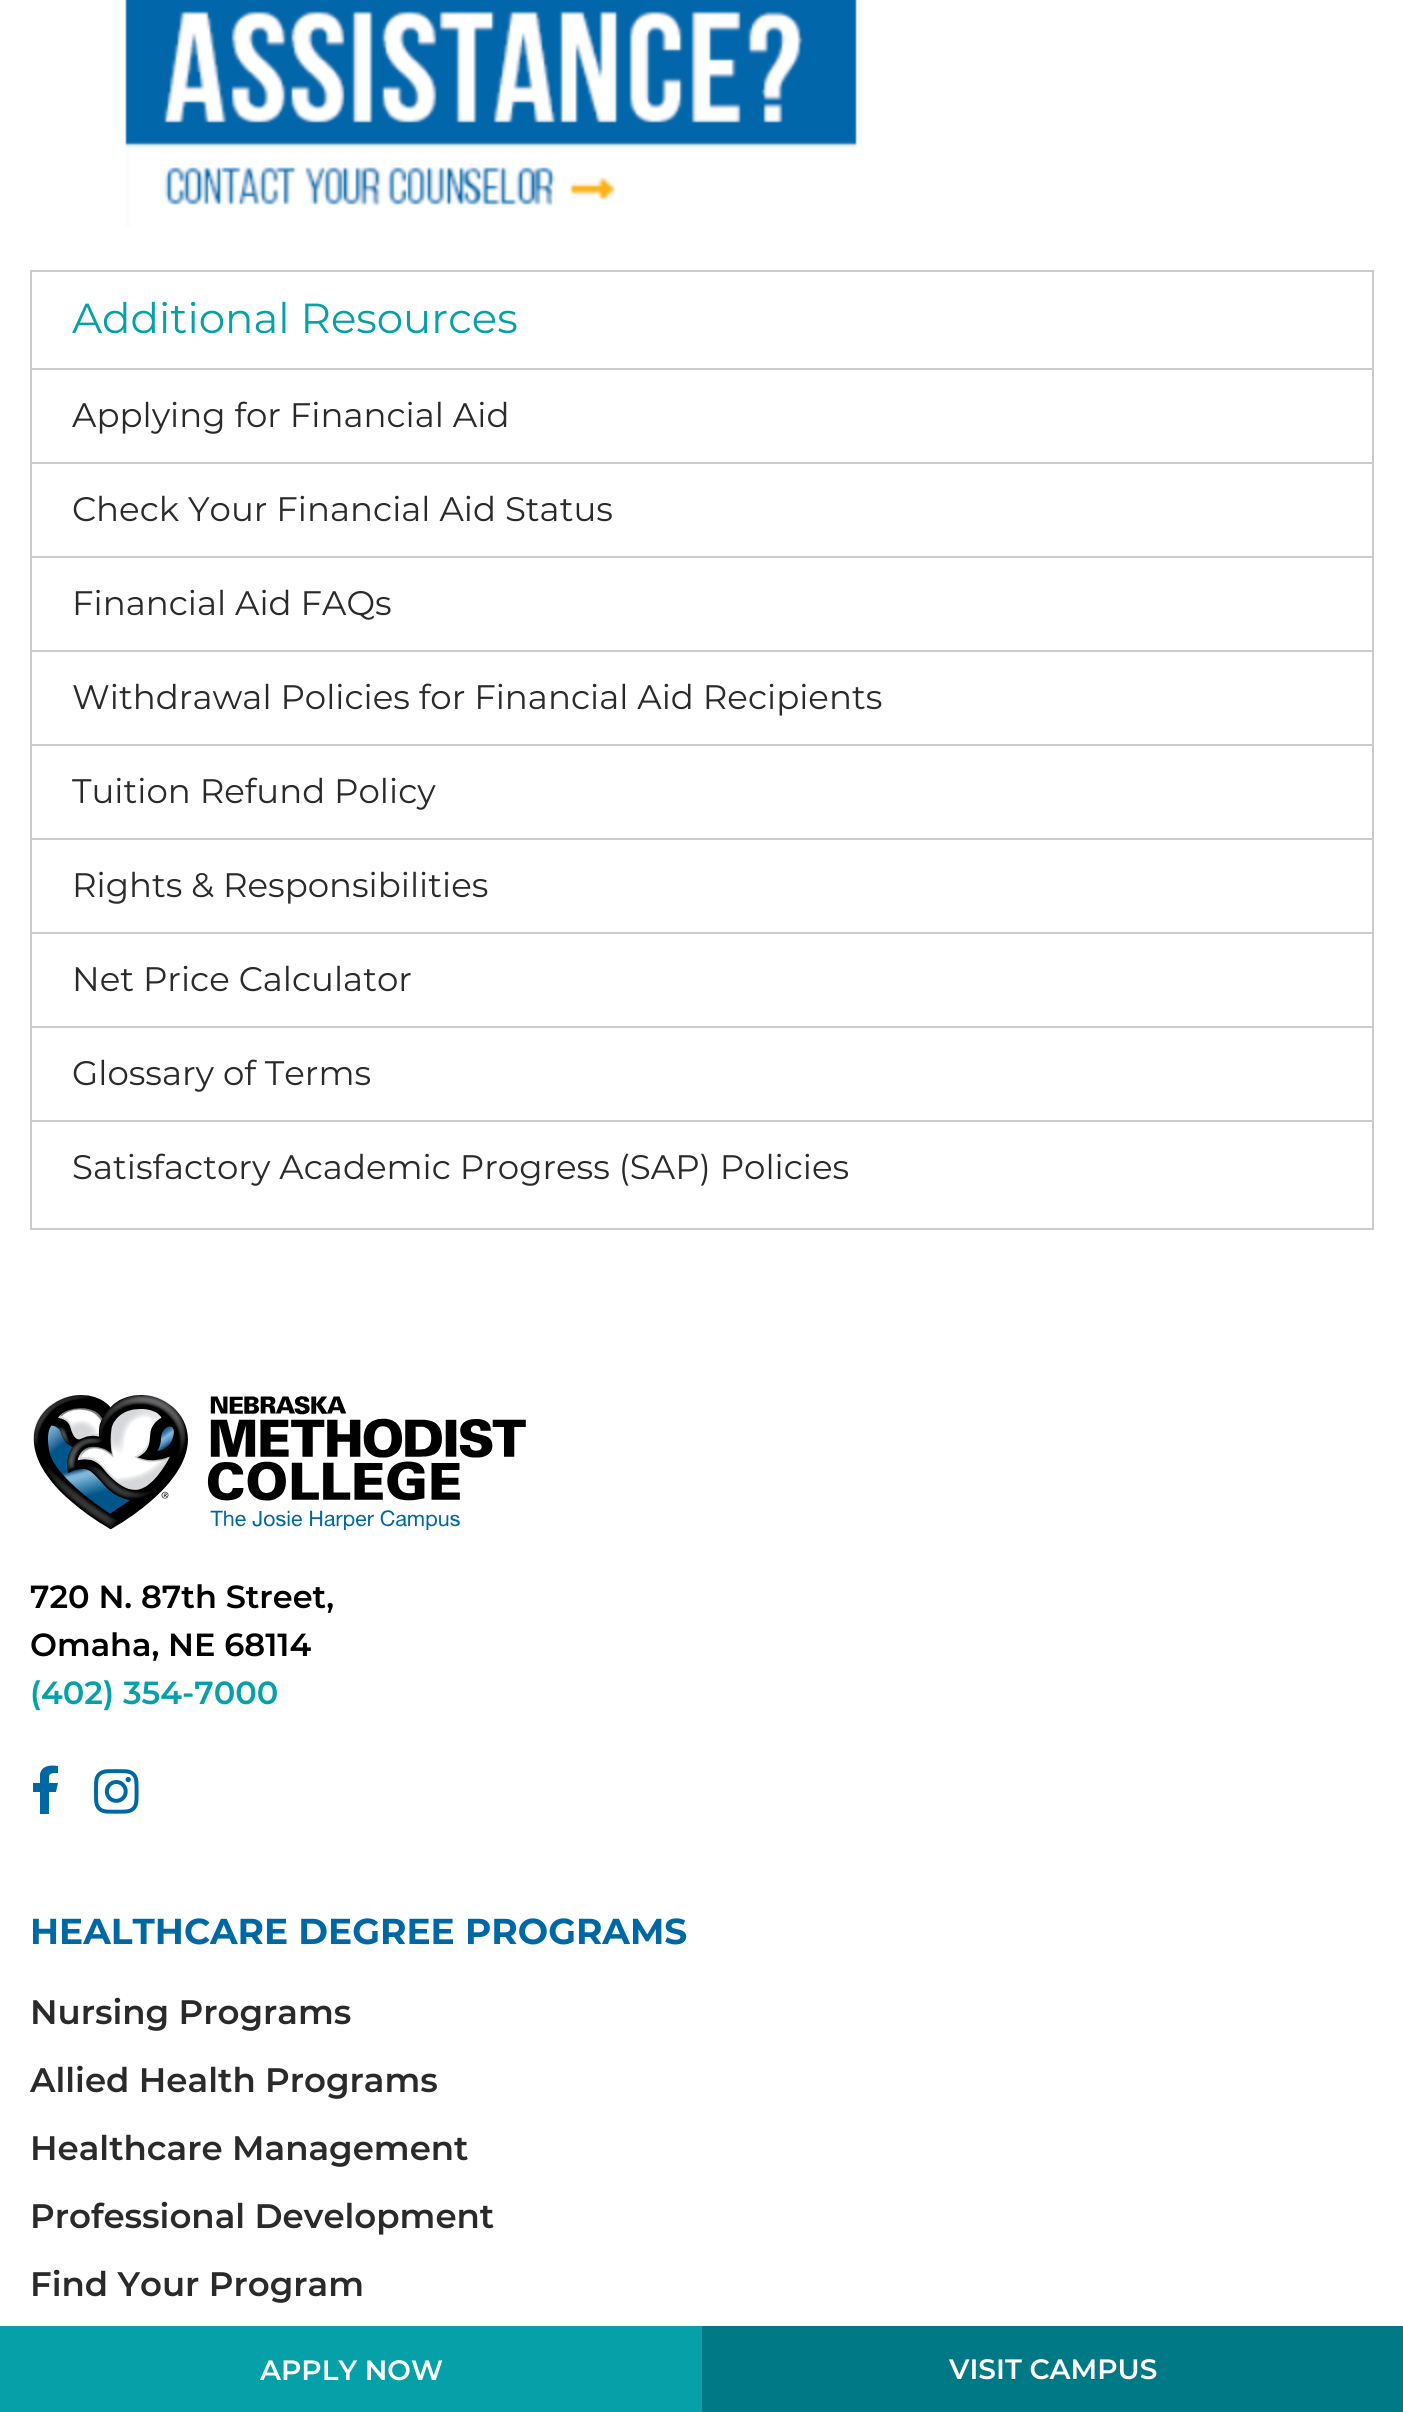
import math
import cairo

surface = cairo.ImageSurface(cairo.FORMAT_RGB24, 1403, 2412)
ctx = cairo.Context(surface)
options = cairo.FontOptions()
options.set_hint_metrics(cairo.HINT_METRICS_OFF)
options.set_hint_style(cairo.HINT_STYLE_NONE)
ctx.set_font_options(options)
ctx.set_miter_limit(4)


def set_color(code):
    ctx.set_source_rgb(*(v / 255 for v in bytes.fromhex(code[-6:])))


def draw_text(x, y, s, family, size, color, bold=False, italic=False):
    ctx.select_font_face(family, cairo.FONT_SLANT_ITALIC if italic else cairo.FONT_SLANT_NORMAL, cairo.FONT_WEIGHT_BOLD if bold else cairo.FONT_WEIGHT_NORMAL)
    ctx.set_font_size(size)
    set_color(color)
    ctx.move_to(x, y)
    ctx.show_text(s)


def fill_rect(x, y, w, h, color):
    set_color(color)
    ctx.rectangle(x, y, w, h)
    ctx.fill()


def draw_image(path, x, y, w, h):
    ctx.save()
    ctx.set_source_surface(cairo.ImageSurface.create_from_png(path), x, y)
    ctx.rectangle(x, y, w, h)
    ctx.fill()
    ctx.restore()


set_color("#ffffff")
ctx.paint()
draw_image("assets/img1.png", 125, 0, 732, 227)
ctx.rectangle(31, 271, 1342, 958)
set_color("#cccccc")
ctx.stroke()
draw_text(72, 333, "Additional Resources", "Montserrat", 42, "#05a0a8")
fill_rect(32, 368, 1340, 2, "#cccccc")
draw_text(72, 427, "Applying for Financial Aid", "Montserrat", 34, "#2a2a2a")
fill_rect(32, 462, 1340, 2, "#cccccc")
draw_text(72, 521, "Check Your Financial Aid Status", "Montserrat", 34, "#2a2a2a")
fill_rect(32, 556, 1340, 2, "#cccccc")
draw_text(72, 615, "Financial Aid FAQs", "Montserrat", 34, "#2a2a2a")
fill_rect(32, 650, 1340, 2, "#cccccc")
draw_text(72, 709, "Withdrawal Policies for Financial Aid Recipients", "Montserrat", 34, "#2a2a2a")
fill_rect(32, 744, 1340, 2, "#cccccc")
draw_text(72, 803, "Tuition Refund Policy", "Montserrat", 34, "#2a2a2a")
fill_rect(32, 838, 1340, 2, "#cccccc")
draw_text(72, 897, "Rights & Responsibilities", "Montserrat", 34, "#2a2a2a")
fill_rect(32, 932, 1340, 2, "#cccccc")
draw_text(72, 991, "Net Price Calculator", "Montserrat", 34, "#2a2a2a")
fill_rect(32, 1026, 1340, 2, "#cccccc")
draw_text(72, 1085, "Glossary of Terms", "Montserrat", 34, "#2a2a2a")
fill_rect(32, 1120, 1340, 2, "#cccccc")
draw_text(72, 1179, "Satisfactory Academic Progress (SAP) Policies", "Montserrat", 34, "#2a2a2a")
draw_image("assets/img2.png", 33, 1395, 493, 135)
draw_text(30, 1608, "720 N. 87th Street,", "Montserrat SemiBold", 32, "#000000")
draw_text(30, 1656, "Omaha, NE 68114", "Montserrat SemiBold", 32, "#000000")
draw_text(30, 1704, "(402) 354-7000", "Montserrat SemiBold", 32, "#05a0a8")
set_color("#0067a5")
ctx.new_path()
ctx.move_to(58, 1766)
ctx.line_to(58, 1773)
ctx.curve_to(48, 1773, 49, 1774, 49, 1783)
ctx.line_to(58, 1783)
ctx.line_to(56, 1792)
ctx.line_to(49, 1792)
ctx.line_to(49, 1814)
ctx.line_to(40, 1814)
ctx.line_to(40, 1792)
ctx.line_to(33, 1792)
ctx.line_to(33, 1783)
ctx.line_to(40, 1783)
ctx.line_to(40, 1774)
ctx.curve_to(42, 1765, 51, 1765, 58, 1766)
ctx.close_path()
ctx.fill()
draw_image("assets/img3.png", 94, 1769, 45, 45)
draw_text(30, 1944, "HEALTHCARE DEGREE PROGRAMS", "Montserrat", 36, "#0067a5", bold=True)
draw_text(30, 2024, "Nursing Programs", "Montserrat SemiBold", 34, "#2a2a2a")
draw_text(30, 2092, "Allied Health Programs", "Montserrat SemiBold", 34, "#2a2a2a")
draw_text(30, 2160, "Healthcare Management", "Montserrat SemiBold", 34, "#2a2a2a")
draw_text(30, 2228, "Professional Development", "Montserrat SemiBold", 34, "#2a2a2a")
draw_text(30, 2296, "Find Your Program", "Montserrat SemiBold", 34, "#2a2a2a")
fill_rect(0, 2326, 702, 86, "#05a0a8")
draw_text(260, 2380, "APPLY NOW", "Montserrat SemiBold", 28, "#ffffff")
fill_rect(702, 2326, 701, 86, "#007987")
draw_text(949, 2379, "VISIT CAMPUS", "Montserrat SemiBold", 28, "#ffffff")
surface.write_to_png("output.png")
